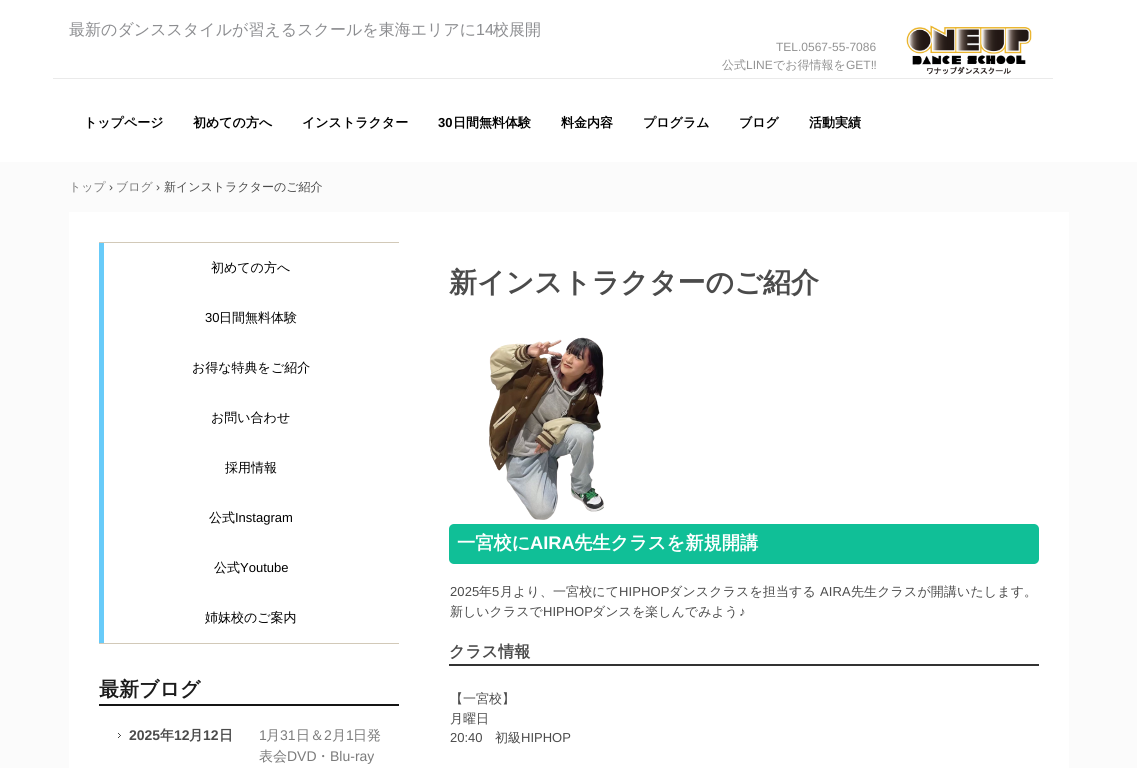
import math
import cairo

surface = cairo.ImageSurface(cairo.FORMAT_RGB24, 1137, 768)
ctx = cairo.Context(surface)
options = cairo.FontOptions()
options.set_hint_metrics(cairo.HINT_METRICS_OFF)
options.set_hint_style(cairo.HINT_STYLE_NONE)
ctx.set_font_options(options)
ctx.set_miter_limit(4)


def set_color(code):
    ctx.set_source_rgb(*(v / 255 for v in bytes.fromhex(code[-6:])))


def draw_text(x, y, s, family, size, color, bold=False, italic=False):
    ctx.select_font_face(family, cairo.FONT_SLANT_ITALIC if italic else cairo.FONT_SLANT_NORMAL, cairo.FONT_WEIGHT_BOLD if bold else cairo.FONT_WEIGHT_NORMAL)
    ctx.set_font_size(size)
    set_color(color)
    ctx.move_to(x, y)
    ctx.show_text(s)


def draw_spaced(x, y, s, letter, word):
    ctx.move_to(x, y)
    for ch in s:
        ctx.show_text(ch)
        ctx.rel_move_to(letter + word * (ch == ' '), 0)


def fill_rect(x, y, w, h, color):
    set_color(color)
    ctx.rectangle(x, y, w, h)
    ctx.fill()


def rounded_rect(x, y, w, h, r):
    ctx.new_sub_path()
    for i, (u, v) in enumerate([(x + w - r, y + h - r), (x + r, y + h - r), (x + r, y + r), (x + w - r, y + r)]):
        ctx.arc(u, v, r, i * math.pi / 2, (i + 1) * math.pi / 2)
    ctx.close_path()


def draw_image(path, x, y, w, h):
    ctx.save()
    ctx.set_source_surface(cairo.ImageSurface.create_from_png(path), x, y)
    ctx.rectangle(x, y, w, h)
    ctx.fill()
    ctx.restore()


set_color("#fbfbfb")
ctx.paint()
fill_rect(0, 0, 1137, 162, "#ffffff")
draw_text(69, 35, "最新のダンススタイルが習えるスクールを東海エリアに", "WenQuanYi Zen Hei Medium", 16, "#8c8d90")
draw_text(476, 35, "14", "Liberation Sans", 16, "#8c8d90")
draw_text(493, 35, "校展開", "WenQuanYi Zen Hei Medium", 16, "#8c8d90")
fill_rect(53, 78, 1000, 1, "#eaeaea")
draw_text(776, 51, "TEL.0567-55-7086", "Liberation Sans", 12, "#929292")
draw_text(722, 69, "公式", "WenQuanYi Zen Hei Medium", 12, "#929292")
draw_text(746, 69, "LINE", "Liberation Sans", 12, "#929292")
draw_text(773, 69, "でお得情報を", "WenQuanYi Zen Hei Medium", 12, "#929292")
draw_text(846, 69, "GET‼", "Liberation Sans", 12, "#929292")
draw_image("assets/img1.png", 906, 25, 126, 50)
draw_text(84, 127, "トップページ", "WenQuanYi Zen Hei", 13, "#000000", bold=True)
draw_text(193, 127, "初めての方へ", "WenQuanYi Zen Hei", 13, "#000000", bold=True)
draw_text(302, 127, "インストラクター", "WenQuanYi Zen Hei", 13, "#000000", bold=True)
draw_text(438, 127, "30", "Liberation Sans", 13, "#000000", bold=True)
draw_text(453, 127, "日間無料体験", "WenQuanYi Zen Hei", 13, "#000000", bold=True)
draw_text(561, 127, "料金内容", "WenQuanYi Zen Hei", 13, "#000000", bold=True)
draw_text(643, 127, "プログラム", "WenQuanYi Zen Hei", 13, "#000000", bold=True)
draw_text(739, 127, "ブログ", "WenQuanYi Zen Hei", 13, "#000000", bold=True)
draw_text(809, 127, "活動実績", "WenQuanYi Zen Hei", 13, "#000000", bold=True)
draw_text(69, 191, "トップ", "WenQuanYi Zen Hei Medium", 12, "#7b7b7b")
draw_text(109, 191, "›", "Liberation Sans", 12, "#4b4b4b")
draw_text(116, 191, "ブログ", "WenQuanYi Zen Hei Medium", 12, "#7b7b7b")
draw_text(156, 191, "›", "Liberation Sans", 12, "#4b4b4b")
draw_text(164, 191, "新インストラクターのご紹介", "WenQuanYi Zen Hei Medium", 12, "#4b4b4b")
fill_rect(69, 212, 1000, 556, "#ffffff")
fill_rect(99, 242, 300, 1, "#d2c9b8")
fill_rect(99, 643, 300, 1, "#d2c9b8")
fill_rect(99, 243, 5, 400, "#68cbf9")
draw_text(211, 272, "初めての方へ", "WenQuanYi Zen Hei Medium", 13, "#000000")
draw_text(205, 322, "30", "Liberation Sans", 13, "#000000")
draw_text(219, 322, "日間無料体験", "WenQuanYi Zen Hei Medium", 13, "#000000")
draw_text(192, 372, "お得な特典をご紹介", "WenQuanYi Zen Hei Medium", 13, "#000000")
draw_text(211, 422, "お問い合わせ", "WenQuanYi Zen Hei Medium", 13, "#000000")
draw_text(225, 472, "採用情報", "WenQuanYi Zen Hei Medium", 13, "#000000")
draw_text(209, 522, "公式", "WenQuanYi Zen Hei Medium", 13, "#000000")
draw_text(235, 522, "Instagram", "Liberation Sans", 13, "#000000")
draw_text(214, 572, "公式", "WenQuanYi Zen Hei Medium", 13, "#000000")
draw_text(240, 572, "Youtube", "Liberation Sans", 13, "#000000")
draw_text(205, 622, "姉妹校のご案内", "WenQuanYi Zen Hei Medium", 13, "#000000")
fill_rect(99, 704, 300, 2, "#151515")
draw_text(99, 696, "最新ブログ", "WenQuanYi Zen Hei", 20, "#1c1c1c", bold=True)
draw_image("assets/img2.png", 118, 733, 3, 5)
draw_text(129, 740, "2025", "Liberation Sans", 14, "#4b4b4b", bold=True)
draw_text(160, 740, "年", "WenQuanYi Zen Hei", 14, "#4b4b4b", bold=True)
draw_text(174, 740, "12", "Liberation Sans", 14, "#4b4b4b", bold=True)
draw_text(189, 740, "月", "WenQuanYi Zen Hei", 14, "#4b4b4b", bold=True)
draw_text(203, 740, "12", "Liberation Sans", 14, "#4b4b4b", bold=True)
draw_text(219, 740, "日", "WenQuanYi Zen Hei", 14, "#4b4b4b", bold=True)
draw_text(259, 740, "1", "Liberation Sans", 14, "#7b7b7b")
draw_text(266, 740, "月", "WenQuanYi Zen Hei Medium", 14, "#7b7b7b")
draw_text(280, 740, "31", "Liberation Sans", 14, "#7b7b7b")
draw_text(296, 740, "日＆", "WenQuanYi Zen Hei Medium", 14, "#7b7b7b")
draw_text(324, 740, "2", "Liberation Sans", 14, "#7b7b7b")
draw_text(332, 740, "月", "WenQuanYi Zen Hei Medium", 14, "#7b7b7b")
draw_text(346, 740, "1", "Liberation Sans", 14, "#7b7b7b")
draw_text(353, 740, "日発", "WenQuanYi Zen Hei Medium", 14, "#7b7b7b")
draw_text(259, 761, "表会", "WenQuanYi Zen Hei Medium", 14, "#7b7b7b")
draw_text(287, 761, "DVD", "Liberation Sans", 14, "#7b7b7b")
draw_text(316, 761, "・", "WenQuanYi Zen Hei Medium", 14, "#7b7b7b")
draw_text(330, 761, "Blu-ray", "Liberation Sans", 14, "#7b7b7b")
draw_text(449, 292, "新インストラクターのご紹介", "WenQuanYi Zen Hei", 28, "#4b4b4b", bold=True)
draw_image("assets/img3.png", 489, 337, 115, 183)
set_color("#10bf97")
rounded_rect(449, 524, 590, 40, 5)
ctx.fill()
draw_text(457, 549, "一宮校に", "WenQuanYi Zen Hei", 18.25, "#ffffff", bold=True)
draw_text(530, 549, "AIRA", "Liberation Sans", 18.25, "#ffffff", bold=True)
draw_text(574, 549, "先生クラスを新規開講", "WenQuanYi Zen Hei", 18.25, "#ffffff", bold=True)
ctx.select_font_face("Liberation Sans")
ctx.set_font_size(13)
set_color("#4b4b4b")
draw_spaced(450, 596, "2025", 0.1, 0)
ctx.select_font_face("WenQuanYi Zen Hei Medium")
draw_spaced(479, 596, "年", 0.1, 0)
ctx.select_font_face("Liberation Sans")
draw_spaced(492, 596, "5", 0.1, 0)
ctx.select_font_face("WenQuanYi Zen Hei Medium")
draw_spaced(500, 596, "月より、一宮校にて", 0.1, 0)
ctx.select_font_face("Liberation Sans")
draw_spaced(619, 596, "HIPHOP", 0.1, 0)
ctx.select_font_face("WenQuanYi Zen Hei Medium")
draw_spaced(669, 596, "ダンスクラスを担当する", 0.1, 0)
ctx.select_font_face("Liberation Sans")
draw_spaced(820, 596, "AIRA", 0.1, 0)
ctx.select_font_face("WenQuanYi Zen Hei Medium")
draw_spaced(851, 596, "先生クラスが開講いたします。", 0.1, 0)
draw_text(450, 616, "新しいクラスで", "WenQuanYi Zen Hei Medium", 13, "#4b4b4b")
draw_text(543, 616, "HIPHOP", "Liberation Sans", 13, "#4b4b4b")
draw_text(592, 616, "ダンスを楽しんでみよう", "WenQuanYi Zen Hei Medium", 13, "#4b4b4b")
draw_text(739, 616, "♪", "Liberation Sans", 13, "#4b4b4b")
fill_rect(449, 664, 590, 2, "#333333")
draw_text(449, 657, "クラス情報", "WenQuanYi Zen Hei", 16, "#4b4b4b", bold=True)
draw_text(450, 703, "【一宮校】", "WenQuanYi Zen Hei Medium", 13, "#4b4b4b")
draw_text(450, 723, "月曜日", "WenQuanYi Zen Hei Medium", 13, "#4b4b4b")
draw_text(450, 742, "20:40", "Liberation Sans", 13, "#4b4b4b")
draw_text(495, 742, "初級", "WenQuanYi Zen Hei Medium", 13, "#4b4b4b")
draw_text(521, 742, "HIPHOP", "Liberation Sans", 13, "#4b4b4b")
surface.write_to_png("output.png")
